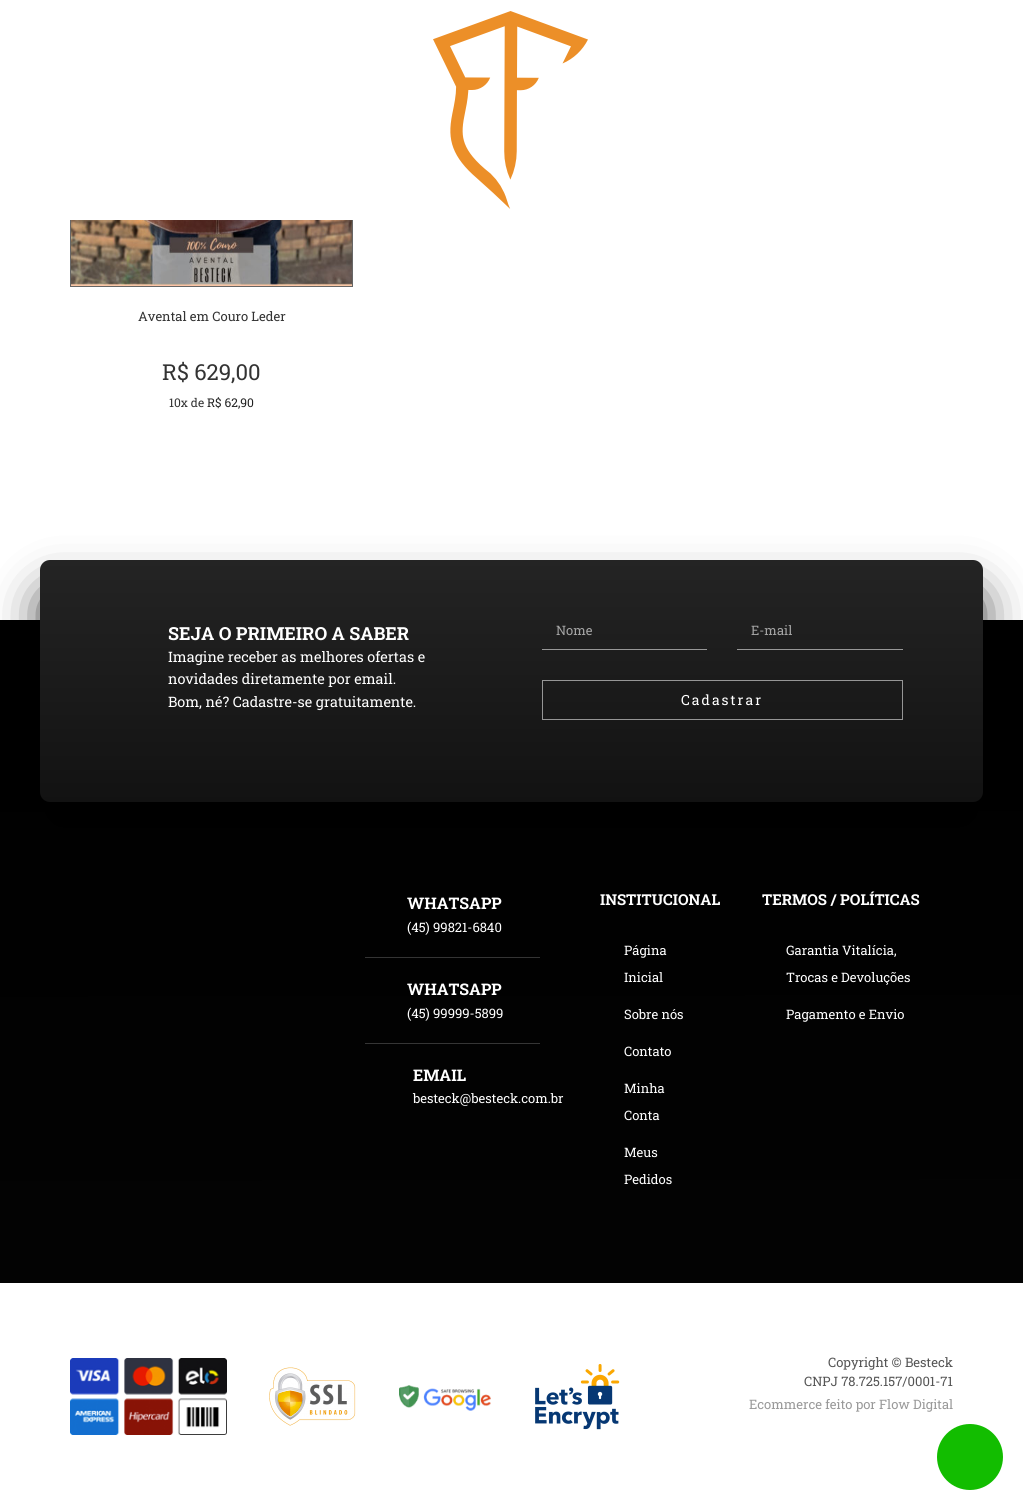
import math
import cairo

surface = cairo.ImageSurface(cairo.FORMAT_RGB24, 1023, 1510)
ctx = cairo.Context(surface)
options = cairo.FontOptions()
options.set_hint_metrics(cairo.HINT_METRICS_OFF)
options.set_hint_style(cairo.HINT_STYLE_NONE)
ctx.set_font_options(options)
ctx.set_miter_limit(4)


def set_color(code):
    ctx.set_source_rgb(*(v / 255 for v in bytes.fromhex(code[-6:])))


def draw_text(x, y, s, family, size, color, bold=False, italic=False):
    ctx.select_font_face(family, cairo.FONT_SLANT_ITALIC if italic else cairo.FONT_SLANT_NORMAL, cairo.FONT_WEIGHT_BOLD if bold else cairo.FONT_WEIGHT_NORMAL)
    ctx.set_font_size(size)
    set_color(color)
    ctx.move_to(x, y)
    ctx.show_text(s)


def draw_spaced(x, y, s, letter, word):
    ctx.move_to(x, y)
    for ch in s:
        ctx.show_text(ch)
        ctx.rel_move_to(letter + word * (ch == ' '), 0)


def fill_rect(x, y, w, h, color):
    set_color(color)
    ctx.rectangle(x, y, w, h)
    ctx.fill()


def rounded_rect(x, y, w, h, r):
    ctx.new_sub_path()
    for i, (u, v) in enumerate([(x + w - r, y + h - r), (x + r, y + h - r), (x + r, y + r), (x + w - r, y + r)]):
        ctx.arc(u, v, r, i * math.pi / 2, (i + 1) * math.pi / 2)
    ctx.close_path()


def draw_shadow(x, y, w, h, r, blur, alpha):
    ctx.push_group_with_content(cairo.CONTENT_ALPHA)
    ctx.set_operator(cairo.OPERATOR_SOURCE)
    for i in range(15, -16, -2):
        e = blur * i / 6
        if min(w, h) + 2 * e > 0:
            ctx.set_source_rgba(0, 0, 0, alpha * math.erfc((i - 1) / 8.5) / 2)
            rounded_rect(x - e, y - e, w + 2 * e, h + 2 * e, max(0, min(r + e + blur * .6, min(w, h) / 2 + e)))
            ctx.fill()
    ctx.mask(ctx.pop_group())


def draw_image(path, x, y, w, h):
    ctx.save()
    ctx.set_source_surface(cairo.ImageSurface.create_from_png(path), x, y)
    ctx.rectangle(x, y, w, h)
    ctx.fill()
    ctx.restore()


set_color("#ffffff")
ctx.paint()
ctx.rectangle(70.5, -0.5, 282, 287)
set_color("#666666")
ctx.set_line_width(1)
ctx.stroke()
fill_rect(70, 0, 283, 220, "#ffffff")
draw_image("assets/img1.png", 433, 11, 155, 198)
draw_image("assets/img2.png", 71, 220, 281, 66)
draw_text(138, 321, "Avental em Couro Leder", "Roboto Slab", 13, "#333333")
draw_text(162, 380, "R$ 629,00", "Roboto Slab", 22, "#333333")
draw_text(169, 407, "10x de", "Roboto Slab", 12, "#333333")
draw_text(207, 407, "R$ 62,90", "Roboto Slab", 12, "#212121")
gradient = cairo.LinearGradient(511, 620, 512, 1283)
gradient.add_color_stop_rgba(0.15, 0, 0, 0, 1)
gradient.add_color_stop_rgba(1, 0.012, 0.012, 0.012, 1)
ctx.set_source(gradient)
ctx.rectangle(0, 620, 1023, 663)
ctx.fill()
set_color("#000000")
draw_shadow(48, 598, 927, 226, 2, 25, 1)
gradient = cairo.LinearGradient(512, 560, 512, 802)
gradient.add_color_stop_rgba(0, 0.141, 0.141, 0.141, 1)
gradient.add_color_stop_rgba(1, 0.071, 0.071, 0.071, 1)
ctx.set_source(gradient)
rounded_rect(40, 560, 943, 242, 10)
ctx.fill()
draw_text(168, 640, "SEJA O PRIMEIRO A SABER", "Roboto Slab", 18, "#ffffff", bold=True)
draw_text(168, 662, "Imagine receber as melhores ofertas e", "Roboto Slab", 14.4, "#ffffff")
draw_text(168, 684, "novidades diretamente por email.", "Roboto Slab", 14.4, "#ffffff")
draw_text(168, 707, "Bom, né? Cadastre-se gratuitamente.", "Roboto Slab", 14.4, "#ffffff")
fill_rect(542, 649, 165, 1, "#979797")
draw_text(556, 635, "Nome", "Roboto Slab", 13, "#a5a5a5")
fill_rect(737, 649, 166, 1, "#979797")
draw_text(751, 635, "E-mail", "Roboto Slab", 13, "#a5a5a5")
ctx.rectangle(542.5, 680.5, 360, 39)
ctx.set_source_rgba(1, 1, 1, 0.54)
ctx.stroke()
ctx.set_font_size(14)
set_color("#ffffff")
draw_spaced(681, 705, "Cadastrar", 2, 0)
draw_text(407, 909, "WHATSAPP", "Roboto Slab", 16, "#ffffff", bold=True)
draw_text(407, 932, "(45) 99821-6840", "Roboto Slab", 13, "#ffffff")
fill_rect(365, 957, 175, 1, "#343434")
draw_text(407, 995, "WHATSAPP", "Roboto Slab", 16, "#ffffff", bold=True)
draw_text(407, 1018, "(45) 99999-5899", "Roboto Slab", 13, "#ffffff")
fill_rect(365, 1043, 175, 1, "#353535")
draw_text(413, 1081, "EMAIL", "Roboto Slab", 16, "#ffffff", bold=True)
draw_text(413, 1103, "besteck@besteck.com.br", "Roboto Slab", 13, "#ffffff")
draw_text(600, 905, "INSTITUCIONAL", "Roboto Slab", 15, "#ffffff", bold=True)
draw_text(624, 955, "Página", "Roboto Slab", 13, "#ffffff")
draw_text(624, 982, "Inicial", "Roboto Slab", 13, "#ffffff")
draw_text(624, 1019, "Sobre nós", "Roboto Slab", 13, "#ffffff")
draw_text(624, 1056, "Contato", "Roboto Slab", 13, "#ffffff")
draw_text(624, 1093, "Minha", "Roboto Slab", 13, "#ffffff")
draw_text(624, 1120, "Conta", "Roboto Slab", 13, "#ffffff")
draw_text(624, 1157, "Meus", "Roboto Slab", 13, "#ffffff")
draw_text(624, 1184, "Pedidos", "Roboto Slab", 13, "#ffffff")
draw_text(762, 905, "TERMOS / POLÍTICAS", "Roboto Slab", 15, "#ffffff", bold=True)
draw_text(786, 955, "Garantia Vitalícia,", "Roboto Slab", 13, "#ffffff")
draw_text(786, 982, "Trocas e Devoluções", "Roboto Slab", 13, "#ffffff")
draw_text(786, 1019, "Pagamento e Envio", "Roboto Slab", 13, "#ffffff")
draw_image("assets/img3.png", 70, 1358, 157, 77)
draw_image("assets/img4.png", 269, 1367, 87, 59)
draw_image("assets/img5.png", 399, 1385, 92, 26)
draw_image("assets/img6.png", 535, 1364, 85, 66)
draw_text(828, 1367, "Copyright © Besteck", "Roboto Slab", 13, "#555555")
draw_text(804, 1386, "CNPJ 78.725.157/0001-71", "Roboto Slab", 13, "#555555")
draw_text(749, 1409, "Ecommerce feito por Flow Digital", "Roboto Slab", 13, "#999999")
set_color("#12bd00")
ctx.new_path()
ctx.arc(970, 1457, 33, 0, 2 * math.pi)
ctx.fill()
surface.write_to_png("output.png")
